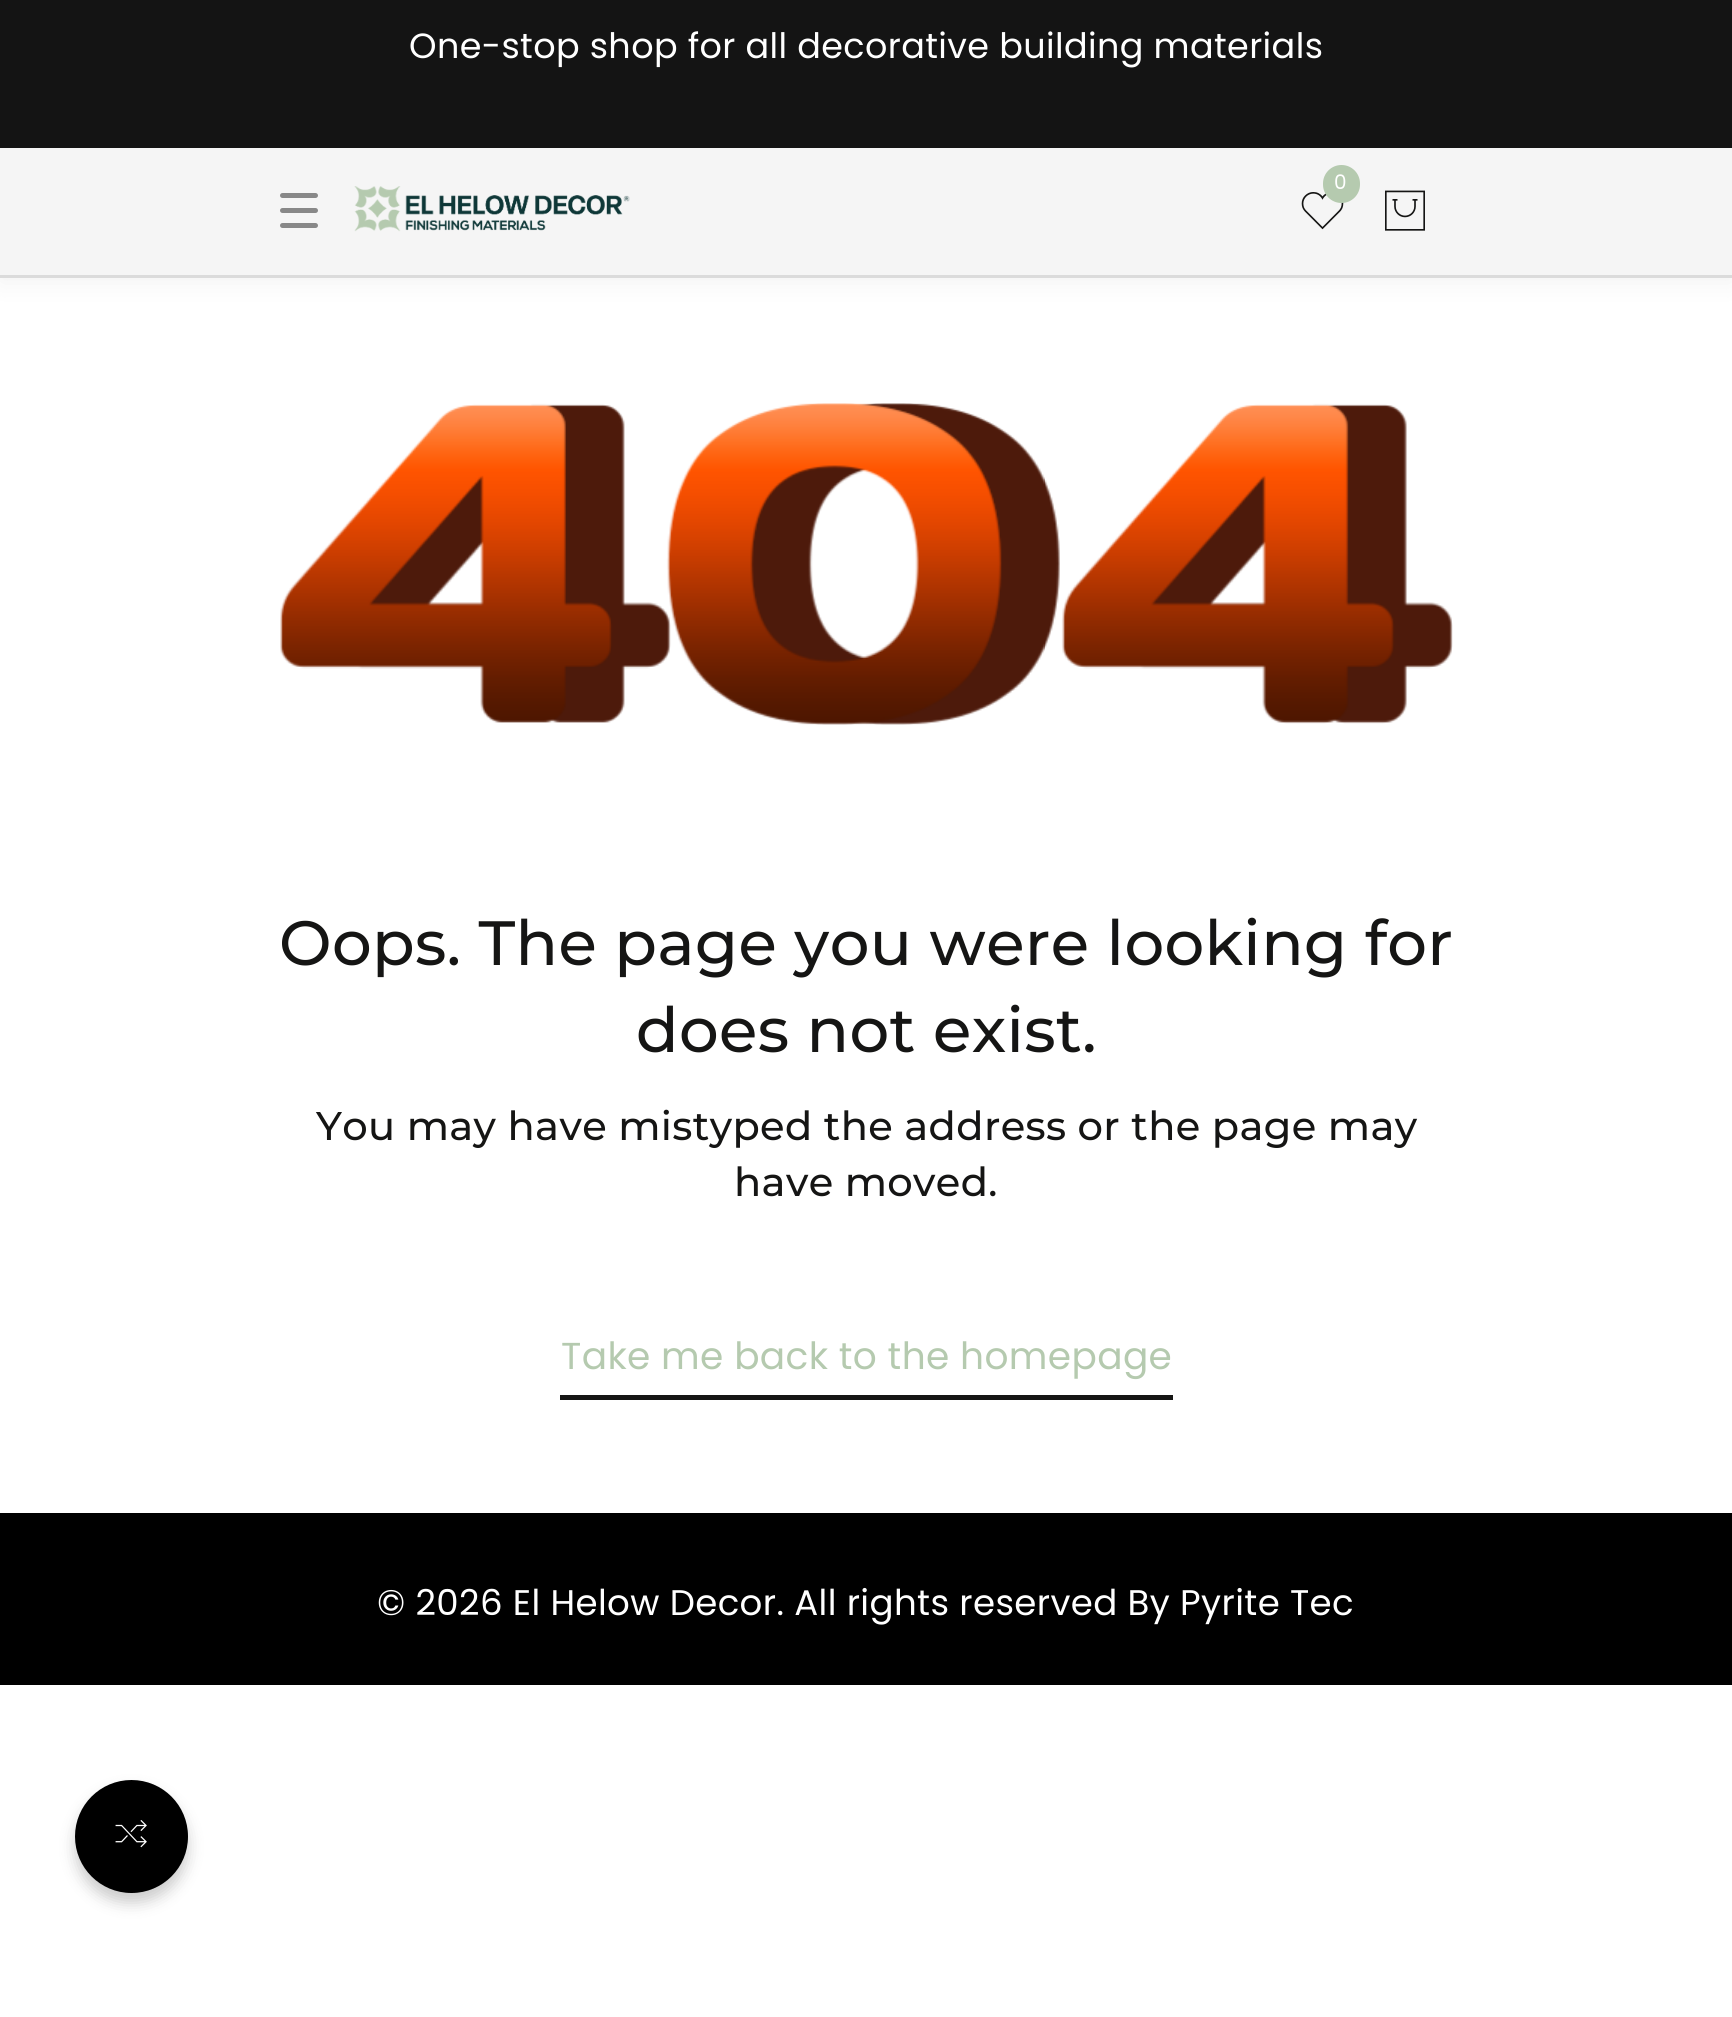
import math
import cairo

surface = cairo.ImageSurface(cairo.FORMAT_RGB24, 1732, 2017)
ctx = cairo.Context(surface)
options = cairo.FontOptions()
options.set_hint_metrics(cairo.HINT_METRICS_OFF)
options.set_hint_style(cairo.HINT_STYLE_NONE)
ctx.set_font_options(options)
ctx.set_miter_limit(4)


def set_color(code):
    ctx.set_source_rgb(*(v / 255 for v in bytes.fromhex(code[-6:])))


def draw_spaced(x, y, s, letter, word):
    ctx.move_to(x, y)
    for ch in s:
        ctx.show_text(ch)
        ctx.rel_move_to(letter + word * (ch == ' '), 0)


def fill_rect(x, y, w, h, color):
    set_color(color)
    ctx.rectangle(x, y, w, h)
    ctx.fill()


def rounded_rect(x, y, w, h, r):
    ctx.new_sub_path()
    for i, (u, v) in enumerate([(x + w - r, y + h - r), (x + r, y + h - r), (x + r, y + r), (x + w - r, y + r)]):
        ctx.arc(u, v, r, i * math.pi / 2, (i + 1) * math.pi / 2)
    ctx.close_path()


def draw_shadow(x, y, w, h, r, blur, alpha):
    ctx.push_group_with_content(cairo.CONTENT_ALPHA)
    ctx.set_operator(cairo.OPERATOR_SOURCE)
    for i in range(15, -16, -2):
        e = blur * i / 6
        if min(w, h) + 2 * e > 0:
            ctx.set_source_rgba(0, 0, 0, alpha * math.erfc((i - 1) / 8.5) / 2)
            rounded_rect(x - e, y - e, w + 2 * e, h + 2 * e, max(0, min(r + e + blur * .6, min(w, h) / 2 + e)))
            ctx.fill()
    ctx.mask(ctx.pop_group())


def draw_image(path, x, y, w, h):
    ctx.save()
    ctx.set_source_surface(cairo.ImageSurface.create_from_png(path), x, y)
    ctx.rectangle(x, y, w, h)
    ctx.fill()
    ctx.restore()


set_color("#ffffff")
ctx.paint()
set_color("#000000")
draw_shadow(0, 153, 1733, 130, 0, 12.5, 0.05)
fill_rect(0, 0, 1732, 148, "#141414")
ctx.select_font_face("Poppins")
ctx.set_font_size(35)
set_color("#ffffff")
draw_spaced(409, 58, "One-stop shop for all decorative building materials", 0.38, 0)
fill_rect(0, 148, 1732, 127, "#f5f5f5")
fill_rect(0, 275, 1732, 3, "#dbdbdb")
draw_image("assets/img1.png", 1301, 192, 43, 38)
set_color("#b5caaf")
rounded_rect(1323, 165, 37, 38, 18.5)
ctx.fill()
ctx.set_font_size(20)
set_color("#ffffff")
draw_spaced(1334, 189, "0", 0.38, 0)
draw_image("assets/img2.png", 1385, 190, 40, 41)
set_color("#888888")
rounded_rect(280, 193, 38, 5, 2.5)
ctx.fill()
rounded_rect(280, 208, 38, 5, 2.5)
ctx.fill()
rounded_rect(280, 223, 38, 5, 2.5)
ctx.fill()
draw_image("assets/img3.png", 354, 186, 276, 46)
draw_image("assets/img4.png", 280, 403, 1173, 322)
ctx.select_font_face("Montserrat Medium")
ctx.set_font_size(62.5)
set_color("#151514")
draw_spaced(279, 965, "Oops. The page you were looking for", 0.38, 0)
draw_spaced(636, 1052, "does not exist.", 0.38, 0)
ctx.set_font_size(40)
draw_spaced(316, 1140, "You may have mistyped the address or the page may", 0.38, 0)
draw_spaced(734, 1196, "have moved.", 0.38, 0)
ctx.select_font_face("Poppins")
ctx.set_font_size(37.5)
set_color("#b5caaf")
draw_spaced(561, 1369, "Take me back to the homepage", 0.38, 0)
fill_rect(560, 1395, 613, 5, "#151514")
fill_rect(0, 1513, 1732, 172, "#000000")
ctx.set_font_size(35.6)
set_color("#ffffff")
draw_spaced(377, 1615, "© 2026 El Helow Decor. All rights reserved By Pyrite Tec", 0.38, 0)
set_color("#000000")
draw_shadow(75, 1790, 113, 113, 56.5, 7.5, 0.2)
set_color("#000000")
ctx.arc(131.5, 1836.5, 56.5, 0, 2 * math.pi)
ctx.fill()
draw_image("assets/img5.png", 115, 1820, 32, 28)
surface.write_to_png("output.png")
